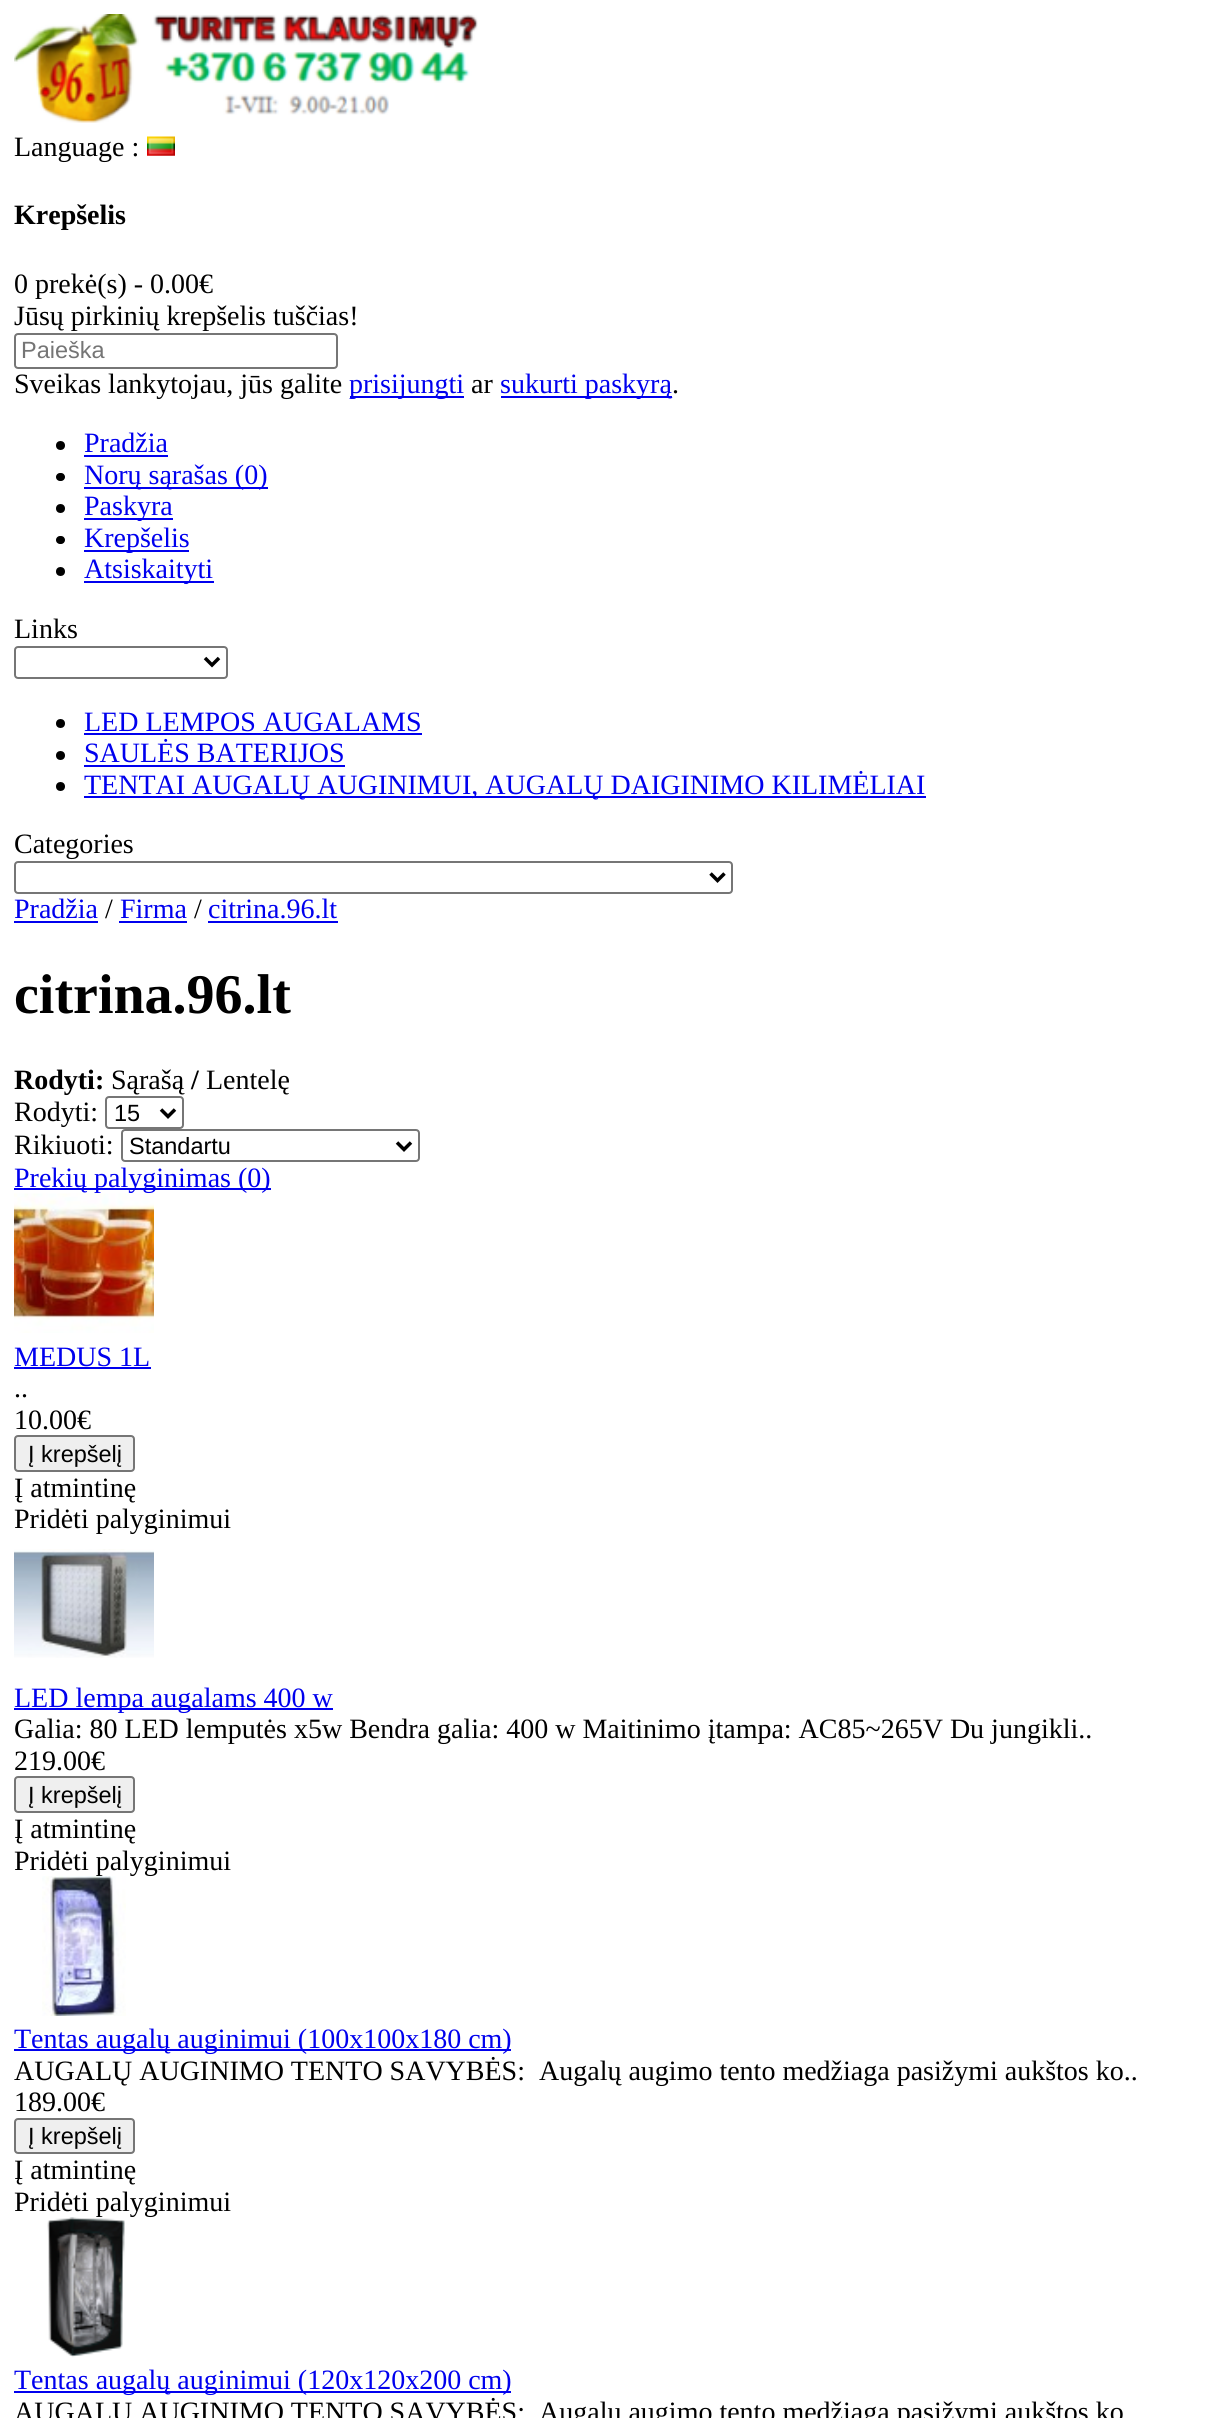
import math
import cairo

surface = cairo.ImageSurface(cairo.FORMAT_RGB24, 1225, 2418)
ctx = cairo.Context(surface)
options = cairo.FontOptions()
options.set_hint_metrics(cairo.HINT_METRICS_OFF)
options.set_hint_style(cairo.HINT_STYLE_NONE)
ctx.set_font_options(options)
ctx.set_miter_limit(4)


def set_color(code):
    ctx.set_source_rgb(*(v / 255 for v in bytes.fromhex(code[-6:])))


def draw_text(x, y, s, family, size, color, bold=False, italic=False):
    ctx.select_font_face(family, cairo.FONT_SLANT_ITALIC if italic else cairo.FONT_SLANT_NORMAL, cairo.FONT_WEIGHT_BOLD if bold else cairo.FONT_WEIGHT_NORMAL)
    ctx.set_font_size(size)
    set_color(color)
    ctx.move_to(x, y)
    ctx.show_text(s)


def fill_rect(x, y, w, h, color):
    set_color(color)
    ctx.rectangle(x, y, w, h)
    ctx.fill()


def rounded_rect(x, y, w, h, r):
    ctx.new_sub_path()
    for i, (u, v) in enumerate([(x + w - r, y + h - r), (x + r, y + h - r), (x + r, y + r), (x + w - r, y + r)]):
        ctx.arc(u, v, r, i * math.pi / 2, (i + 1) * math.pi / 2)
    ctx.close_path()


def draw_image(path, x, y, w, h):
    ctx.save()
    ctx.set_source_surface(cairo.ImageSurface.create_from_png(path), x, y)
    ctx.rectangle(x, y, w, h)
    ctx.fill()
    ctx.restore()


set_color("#ffffff")
ctx.paint()
draw_image("assets/img1.png", 14, 14, 464, 109)
draw_text(14, 156, "Language :", "Liberation Serif", 28, "#000000")
draw_image("assets/img2.png", 147, 136, 28, 20)
draw_text(14, 224, "Krepšelis", "Liberation Serif", 28, "#000000", bold=True)
draw_text(14, 293, "0 prekė(s) - 0.00€", "Liberation Serif", 28, "#000000")
draw_text(14, 325, "Jūsų pirkinių krepšelis tuščias!", "Liberation Serif", 28, "#000000")
rounded_rect(15, 334, 322, 34, 3)
set_color("#767676")
ctx.stroke()
draw_text(21, 358, "Paieška", "Liberation Sans", 23.5, "#757575")
draw_text(14, 393, "Sveikas lankytojau, jūs galite", "Liberation Serif", 28, "#000000")
fill_rect(350, 396, 114, 2, "#0000ee")
draw_text(349, 393, "prisijungti", "Liberation Serif", 28, "#0000ee")
draw_text(471, 393, "ar", "Liberation Serif", 28, "#000000")
fill_rect(501, 396, 171, 2, "#0000ee")
draw_text(500, 393, "sukurti paskyrą", "Liberation Serif", 28, "#0000ee")
draw_text(672, 393, ".", "Liberation Serif", 28, "#000000")
ctx.new_path()
ctx.arc(60.5, 445.5, 4.5, 0, 2 * math.pi)
ctx.fill()
draw_text(84, 452, "Pradžia", "Liberation Serif", 28, "#0000ee")
fill_rect(84, 455, 84, 2, "#0000ee")
set_color("#000000")
rounded_rect(56, 473, 9, 8, 4)
ctx.fill()
fill_rect(84, 487, 184, 2, "#0000ee")
draw_text(84, 484, "Norų sąrašas (0)", "Liberation Serif", 28, "#0000ee")
set_color("#000000")
ctx.new_path()
ctx.arc(60.5, 508.5, 4.5, 0, 2 * math.pi)
ctx.fill()
fill_rect(84, 518, 89, 2, "#0000ee")
draw_text(84, 515, "Paskyra", "Liberation Serif", 28, "#0000ee")
set_color("#000000")
rounded_rect(56, 536, 9, 8, 4)
ctx.fill()
fill_rect(84, 550, 105, 2, "#0000ee")
draw_text(84, 547, "Krepšelis", "Liberation Serif", 28, "#0000ee")
set_color("#000000")
ctx.new_path()
ctx.arc(60.5, 571.5, 4.5, 0, 2 * math.pi)
ctx.fill()
fill_rect(84, 581, 130, 2, "#0000ee")
draw_text(84, 578, "Atsiskaityti", "Liberation Serif", 28, "#0000ee")
draw_text(14, 638, "Links", "Liberation Serif", 28, "#000000")
rounded_rect(15, 647, 212, 31, 3)
set_color("#767676")
ctx.stroke()
ctx.new_path()
ctx.move_to(205, 658)
ctx.line_to(212, 665)
ctx.line_to(219, 658)
set_color("#000000")
ctx.set_line_width(3.5)
ctx.stroke()
ctx.arc(60.5, 723.5, 4.5, 0, 2 * math.pi)
ctx.fill()
draw_text(84, 731, "LED LEMPOS AUGALAMS", "Liberation Serif", 28, "#0000ee")
fill_rect(84, 733, 338, 2, "#0000ee")
set_color("#000000")
ctx.new_path()
ctx.arc(60.5, 755.5, 4.5, 0, 2 * math.pi)
ctx.fill()
draw_text(84, 762, "SAULĖS BATERIJOS", "Liberation Serif", 28, "#0000ee")
fill_rect(84, 765, 261, 2, "#0000ee")
set_color("#000000")
ctx.new_path()
ctx.arc(60.5, 786.5, 4.5, 0, 2 * math.pi)
ctx.fill()
fill_rect(84, 796, 842, 2, "#0000ee")
draw_text(84, 794, "TENTAI AUGALŲ AUGINIMUI, AUGALŲ DAIGINIMO KILIMĖLIAI", "Liberation Serif", 28, "#0000ee")
draw_text(14, 853, "Categories", "Liberation Serif", 28, "#000000")
rounded_rect(15, 862, 717, 31, 3)
set_color("#767676")
ctx.set_line_width(2)
ctx.stroke()
ctx.new_path()
ctx.move_to(710.5, 873.5)
ctx.line_to(717.5, 880.5)
ctx.line_to(724.5, 873.5)
set_color("#000000")
ctx.set_line_width(3.5)
ctx.stroke()
draw_text(14, 918, "Pradžia", "Liberation Serif", 28, "#0000ee")
fill_rect(14, 921, 84, 2, "#0000ee")
draw_text(105, 918, "/", "Liberation Serif", 28, "#000000")
draw_text(120, 918, "Firma", "Liberation Serif", 28, "#0000ee")
fill_rect(119, 921, 68, 2, "#0000ee")
draw_text(194, 918, "/", "Liberation Serif", 28, "#000000")
draw_text(208, 918, "citrina.96.lt", "Liberation Serif", 28, "#0000ee")
fill_rect(208, 921, 130, 2, "#0000ee")
draw_text(14, 1013, "citrina.96.lt", "Liberation Serif", 56, "#000000", bold=True)
draw_text(14, 1089, "Rodyti:", "Liberation Serif", 28, "#000000", bold=True)
draw_text(111, 1089, "Sąrašą", "Liberation Serif", 28, "#000000")
draw_text(191, 1089, "/", "Liberation Serif", 28, "#000000", bold=True)
draw_text(206, 1089, "Lentelę", "Liberation Serif", 28, "#000000")
draw_text(14, 1121, "Rodyti:", "Liberation Serif", 28, "#000000")
rounded_rect(106, 1097, 77, 31, 3)
set_color("#767676")
ctx.set_line_width(2)
ctx.stroke()
ctx.new_path()
ctx.move_to(161, 1109.5)
ctx.line_to(168, 1116.5)
ctx.line_to(175, 1109.5)
set_color("#000000")
ctx.set_line_width(3.5)
ctx.stroke()
draw_text(114, 1121, "15", "Liberation Sans", 23.5, "#000000")
draw_text(14, 1154, "Rikiuoti:", "Liberation Serif", 28, "#000000")
rounded_rect(122, 1130, 297, 31, 3)
set_color("#767676")
ctx.set_line_width(2)
ctx.stroke()
ctx.new_path()
ctx.move_to(397, 1142.5)
ctx.line_to(404, 1149.5)
ctx.line_to(411, 1142.5)
set_color("#000000")
ctx.set_line_width(3.5)
ctx.stroke()
draw_text(129, 1154, "Standartu", "Liberation Sans", 23.5, "#000000")
fill_rect(14, 1188, 257, 2, "#0000ee")
draw_text(14, 1187, "Prekių palyginimas (0)", "Liberation Serif", 28, "#0000ee")
draw_image("assets/img3.png", 14, 1193, 140, 140)
draw_text(14, 1366, "MEDUS 1L", "Liberation Serif", 28, "#0000ee")
fill_rect(14, 1367, 137, 2, "#0000ee")
draw_text(14, 1397, "..", "Liberation Serif", 28, "#000000")
draw_text(14, 1429, "10.00€", "Liberation Serif", 28, "#000000")
set_color("#efefef")
rounded_rect(15, 1436, 119, 35, 3)
ctx.fill_preserve()
set_color("#767676")
ctx.set_line_width(2)
ctx.stroke()
draw_text(28, 1462, "Į krepšelį", "Liberation Sans", 23.5, "#000000")
draw_text(14, 1497, "Į atmintinę", "Liberation Serif", 28, "#000000")
draw_text(14, 1528, "Pridėti palyginimui", "Liberation Serif", 28, "#000000")
draw_image("assets/img4.png", 14, 1549, 140, 109)
fill_rect(14, 1708, 319, 2, "#0000ee")
draw_text(14, 1707, "LED lempa augalams 400 w", "Liberation Serif", 28, "#0000ee")
draw_text(14, 1738, "Galia: 80 LED lemputės x5w Bendra galia: 400 w Maitinimo įtampa: AC85~265V Du jungikli..", "Liberation Serif", 28, "#000000")
draw_text(14, 1770, "219.00€", "Liberation Serif", 28, "#000000")
set_color("#efefef")
rounded_rect(15, 1777, 119, 35, 3)
ctx.fill_preserve()
set_color("#767676")
ctx.stroke()
draw_text(28, 1803, "Į krepšelį", "Liberation Sans", 23.5, "#000000")
draw_text(14, 1838, "Į atmintinę", "Liberation Serif", 28, "#000000")
draw_text(14, 1870, "Pridėti palyginimui", "Liberation Serif", 28, "#000000")
draw_image("assets/img5.png", 42, 1876, 84, 140)
fill_rect(14, 2049, 497, 2, "#0000ee")
draw_text(14, 2048, "Tentas augalų auginimui (100x100x180 cm)", "Liberation Serif", 28, "#0000ee")
draw_text(14, 2080, "AUGALŲ AUGINIMO TENTO SAVYBĖS:", "Liberation Serif", 28, "#000000")
draw_text(539, 2080, "Augalų augimo tento medžiaga pasižymi aukštos ko..", "Liberation Serif", 28, "#000000")
draw_text(14, 2111, "189.00€", "Liberation Serif", 28, "#000000")
set_color("#efefef")
rounded_rect(15, 2119, 119, 34, 3)
ctx.fill_preserve()
set_color("#767676")
ctx.stroke()
draw_text(28, 2144, "Į krepšelį", "Liberation Sans", 23.5, "#000000")
draw_text(14, 2179, "Į atmintinę", "Liberation Serif", 28, "#000000")
draw_text(14, 2211, "Pridėti palyginimui", "Liberation Serif", 28, "#000000")
draw_image("assets/img6.png", 47, 2217, 78, 141)
fill_rect(14, 2391, 497, 2, "#0000ee")
draw_text(14, 2389, "Tentas augalų auginimui (120x120x200 cm)", "Liberation Serif", 28, "#0000ee")
draw_text(14, 2421, "AUGALŲ AUGINIMO TENTO SAVYBĖS:", "Liberation Serif", 28, "#000000")
draw_text(539, 2421, "Augalų augimo tento medžiaga pasižymi aukštos ko", "Liberation Serif", 28, "#000000")
surface.write_to_png("output.png")
